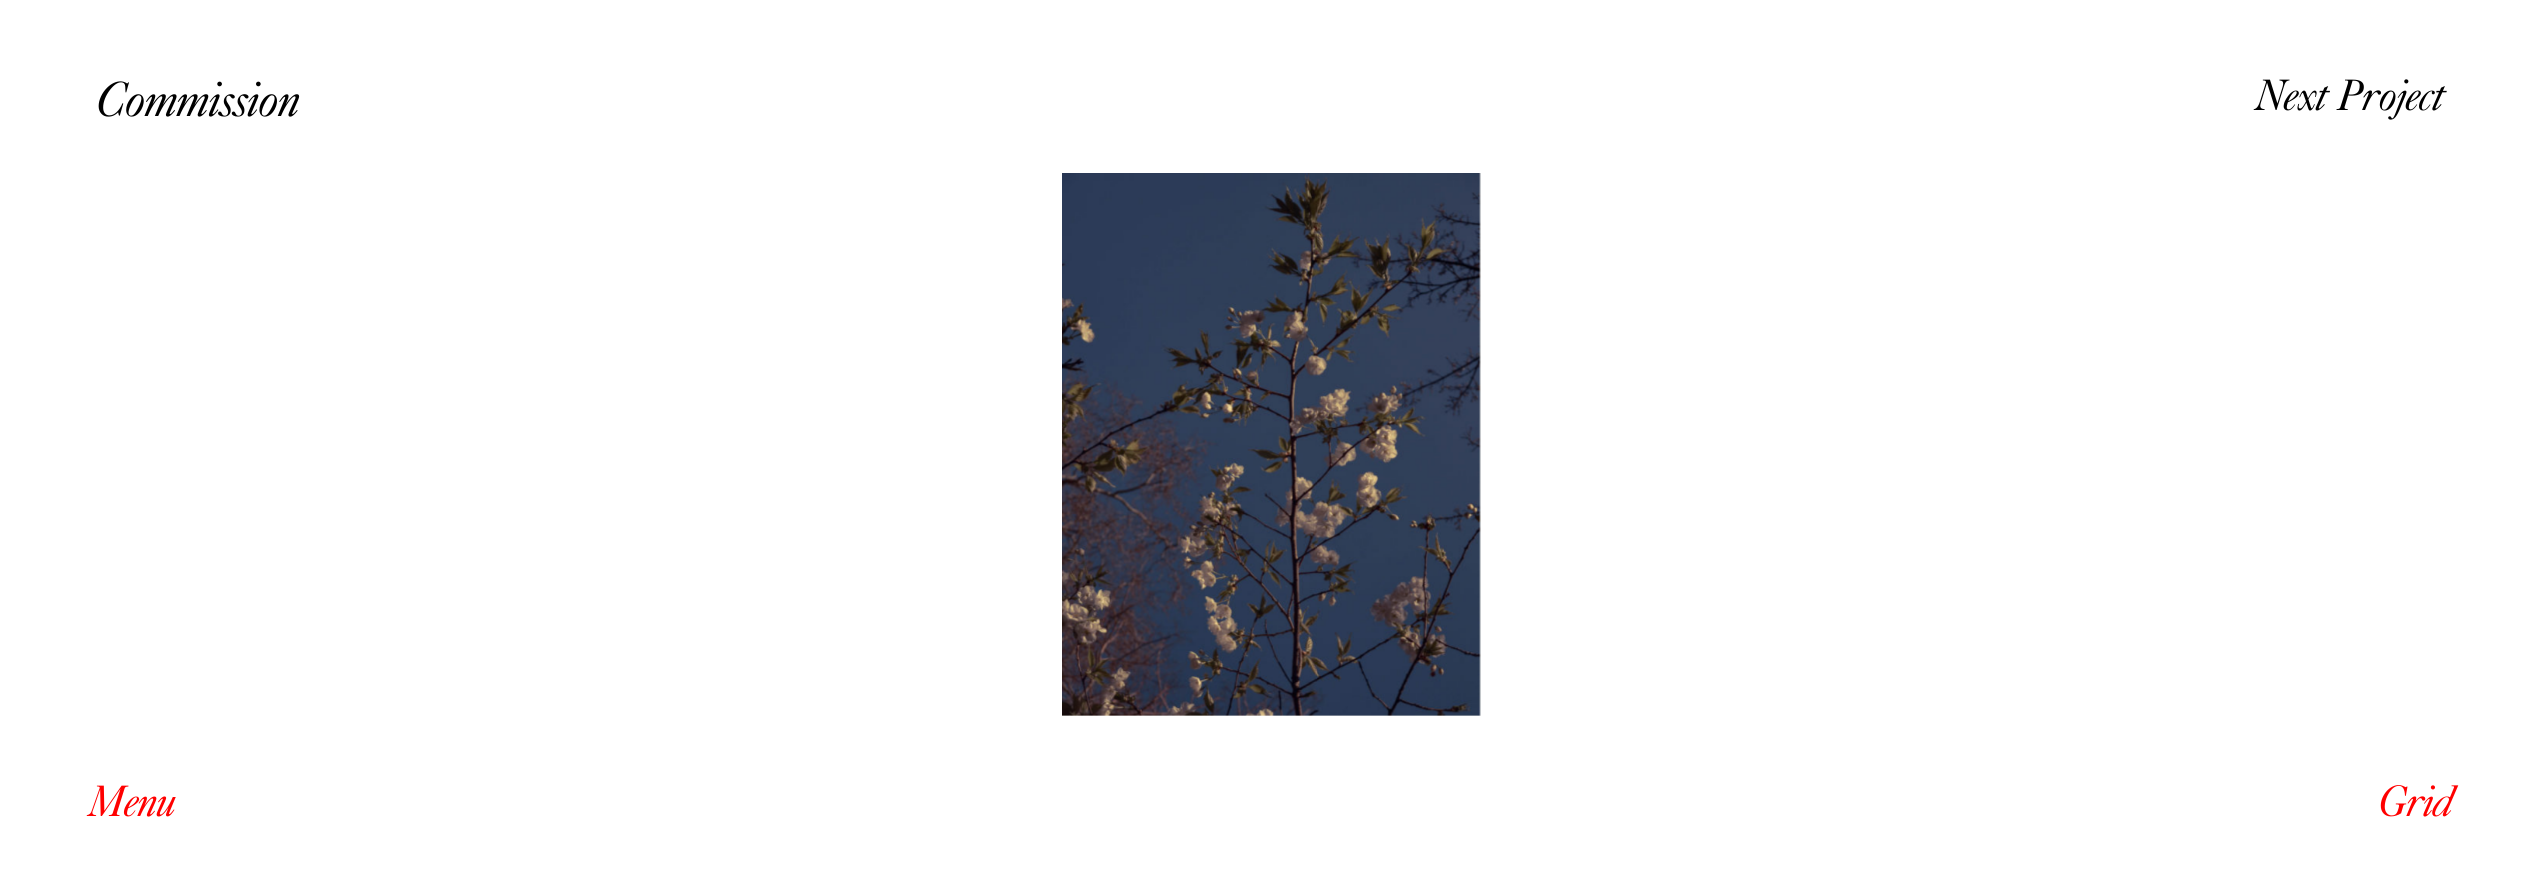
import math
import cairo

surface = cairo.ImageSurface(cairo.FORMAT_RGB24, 2540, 889)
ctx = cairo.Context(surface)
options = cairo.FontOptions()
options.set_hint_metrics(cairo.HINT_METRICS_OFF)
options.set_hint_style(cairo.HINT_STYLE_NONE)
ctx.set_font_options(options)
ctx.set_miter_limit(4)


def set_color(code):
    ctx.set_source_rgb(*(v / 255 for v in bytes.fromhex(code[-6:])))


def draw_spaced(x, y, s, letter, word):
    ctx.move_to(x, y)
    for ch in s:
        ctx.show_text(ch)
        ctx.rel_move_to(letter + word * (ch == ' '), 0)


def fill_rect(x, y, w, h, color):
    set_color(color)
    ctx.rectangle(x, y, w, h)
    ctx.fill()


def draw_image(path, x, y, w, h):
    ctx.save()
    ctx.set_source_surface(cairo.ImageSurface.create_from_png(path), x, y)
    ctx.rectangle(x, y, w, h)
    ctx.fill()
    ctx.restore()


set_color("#ffffff")
ctx.paint()
ctx.select_font_face("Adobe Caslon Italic")
ctx.set_font_size(49)
set_color("#000000")
draw_spaced(96, 116, "Commission", -0.9, 0)
ctx.set_font_size(43.75)
draw_spaced(2255, 110, "Next Project", -0.9, 0)
fill_rect(1062, 173, 419, 543, "#f6f6f2")
draw_image("assets/img1.png", 1062, 173, 419, 543)
set_color("#ff0000")
draw_spaced(88, 816, "Menu", -0.9, 0)
draw_spaced(2378, 816, "Grid", -0.9, 0)
surface.write_to_png("output.png")
